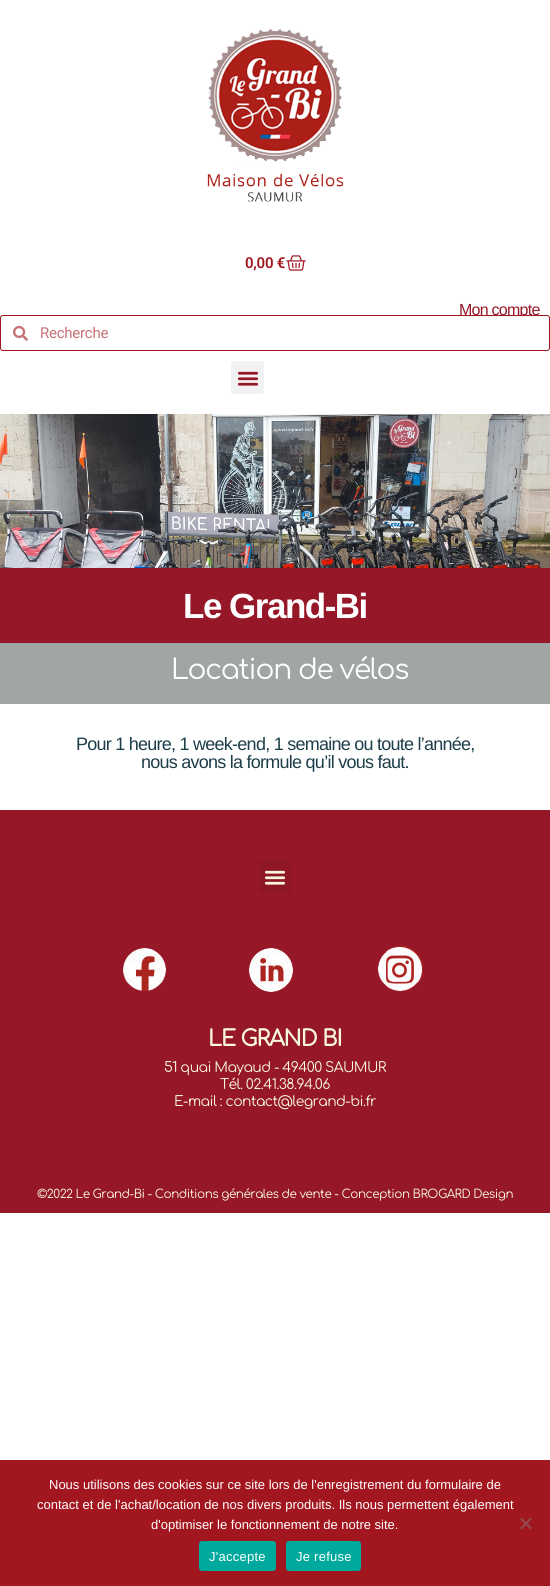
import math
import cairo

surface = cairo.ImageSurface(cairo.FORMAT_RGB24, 550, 1586)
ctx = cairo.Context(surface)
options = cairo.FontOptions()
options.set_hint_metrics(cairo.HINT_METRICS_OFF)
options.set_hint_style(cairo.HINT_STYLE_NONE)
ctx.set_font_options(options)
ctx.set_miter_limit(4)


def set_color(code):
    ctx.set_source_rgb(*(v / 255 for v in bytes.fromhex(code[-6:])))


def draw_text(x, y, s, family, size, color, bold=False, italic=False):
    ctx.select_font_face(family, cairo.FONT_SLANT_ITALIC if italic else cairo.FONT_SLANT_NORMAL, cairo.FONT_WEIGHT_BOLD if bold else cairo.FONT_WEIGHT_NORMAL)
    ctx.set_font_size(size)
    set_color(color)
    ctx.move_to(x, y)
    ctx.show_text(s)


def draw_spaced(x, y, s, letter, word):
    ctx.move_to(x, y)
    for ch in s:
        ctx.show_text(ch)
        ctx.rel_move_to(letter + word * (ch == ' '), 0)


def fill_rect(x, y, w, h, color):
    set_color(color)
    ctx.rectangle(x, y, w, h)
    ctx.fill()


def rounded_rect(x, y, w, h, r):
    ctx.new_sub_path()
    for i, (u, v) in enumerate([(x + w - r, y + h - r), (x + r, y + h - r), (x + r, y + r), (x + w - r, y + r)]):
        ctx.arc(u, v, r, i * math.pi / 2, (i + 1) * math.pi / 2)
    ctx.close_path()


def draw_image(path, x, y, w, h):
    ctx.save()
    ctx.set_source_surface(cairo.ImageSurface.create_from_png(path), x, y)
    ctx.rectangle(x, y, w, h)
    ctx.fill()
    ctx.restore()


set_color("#ffffff")
ctx.paint()
draw_image("assets/img1.png", 207, 29, 137, 173)
ctx.select_font_face("Roboto SemiBold")
ctx.set_font_size(15)
set_color("#a2161f")
draw_spaced(245, 268, "0,00 €", -0.25, 0)
draw_image("assets/img2.png", 286, 255, 20, 16)
ctx.select_font_face("Liberation Sans")
ctx.set_font_size(16)
set_color("#961727")
draw_spaced(459, 315, "Mon compte", -0.75, 0)
set_color("#ffffff")
rounded_rect(0.5, 315.5, 549, 35, 2.5)
ctx.fill_preserve()
set_color("#a2161f")
ctx.set_line_width(1)
ctx.stroke()
draw_image("assets/img3.png", 13, 325, 15, 16)
ctx.select_font_face("Roboto")
ctx.set_font_size(15)
set_color("#c77379")
draw_spaced(40, 338, "Recherche", -0.25, 0)
set_color("#f2f2f2")
rounded_rect(231, 361, 33, 33, 3)
ctx.fill()
draw_image("assets/img4.png", 237, 371, 22, 15)
draw_image("assets/img5.png", 0, 414, 550, 154)
fill_rect(0, 568, 550, 75, "#961727")
ctx.select_font_face("Liberation Sans", cairo.FONT_SLANT_NORMAL, cairo.FONT_WEIGHT_BOLD)
ctx.set_font_size(35)
set_color("#ffffff")
draw_spaced(183, 618, "Le Grand-Bi", -1.5, 0)
fill_rect(0, 643, 550, 61, "#9fa6a4")
ctx.select_font_face("Comfortaa")
ctx.set_font_size(28)
set_color("#ffffff")
draw_spaced(171, 679, "Location de vélos", -1.2, 0)
ctx.select_font_face("Liberation Sans")
ctx.set_font_size(18)
set_color("#1c3d49")
draw_spaced(76, 750, "Pour 1 heure, 1 week-end, 1 semaine ou toute l’année,", -0.75, 0)
draw_spaced(141, 768, "nous avons la formule qu’il vous faut.", -0.75, 0)
fill_rect(0, 810, 550, 403, "#961727")
set_color("#8f1625")
rounded_rect(259, 860, 32, 33, 3)
ctx.fill()
draw_image("assets/img6.png", 264, 870, 22, 15)
draw_image("assets/img7.png", 123, 948, 43, 43)
draw_image("assets/img8.png", 249, 948, 44, 44)
draw_image("assets/img9.png", 378, 946, 45, 45)
ctx.select_font_face("Comfortaa", cairo.FONT_SLANT_NORMAL, cairo.FONT_WEIGHT_BOLD)
ctx.set_font_size(22)
set_color("#f7f7de")
draw_spaced(208, 1046, "LE GRAND BI", -1, 0)
ctx.select_font_face("Comfortaa")
ctx.set_font_size(14)
draw_spaced(164, 1072, "51 quai Mayaud - 49400 SAUMUR", -0.6, 0)
draw_spaced(220, 1089, "Tél. 02.41.38.94.06", -0.6, 0)
draw_spaced(174, 1106, "E-mail : contact@legrand-bi.fr", -0.6, 0)
ctx.set_font_size(12)
draw_spaced(37, 1198, "©2022 Le Grand-Bi - Conditions générales de vente - Conception BROGARD Design", -0.5, 0)
fill_rect(0, 1460, 550, 126, "#a2161f")
draw_text(49, 1489, "Nous utilisons des cookies sur ce site lors de l'enregistrement du formulaire de", "Liberation Sans", 13, "#ffffff")
draw_text(37, 1509, "contact et de l'achat/location de nos divers produits. Ils nous permettent également", "Liberation Sans", 13, "#ffffff")
draw_text(151, 1529, "d'optimiser le fonctionnement de notre site.", "Liberation Sans", 13, "#ffffff")
set_color("#914b50")
ctx.new_path()
ctx.move_to(530.5, 1517.5)
ctx.line_to(532, 1519)
ctx.line_to(521.5, 1529.5)
ctx.line_to(520, 1528)
ctx.close_path()
ctx.fill()
ctx.new_path()
ctx.move_to(520, 1519)
ctx.line_to(521.5, 1517.5)
ctx.line_to(532, 1528)
ctx.line_to(530.5, 1529.5)
ctx.close_path()
ctx.fill()
set_color("#00a99d")
rounded_rect(199, 1541, 77, 30, 3)
ctx.fill()
set_color("#ffffff")
draw_spaced(209, 1561, "J'accepte", 0.25, 0)
set_color("#00a99d")
rounded_rect(286, 1541, 75, 30, 3)
ctx.fill()
set_color("#ffffff")
draw_spaced(296, 1561, "Je refuse", 0.25, 0)
surface.write_to_png("output.png")
